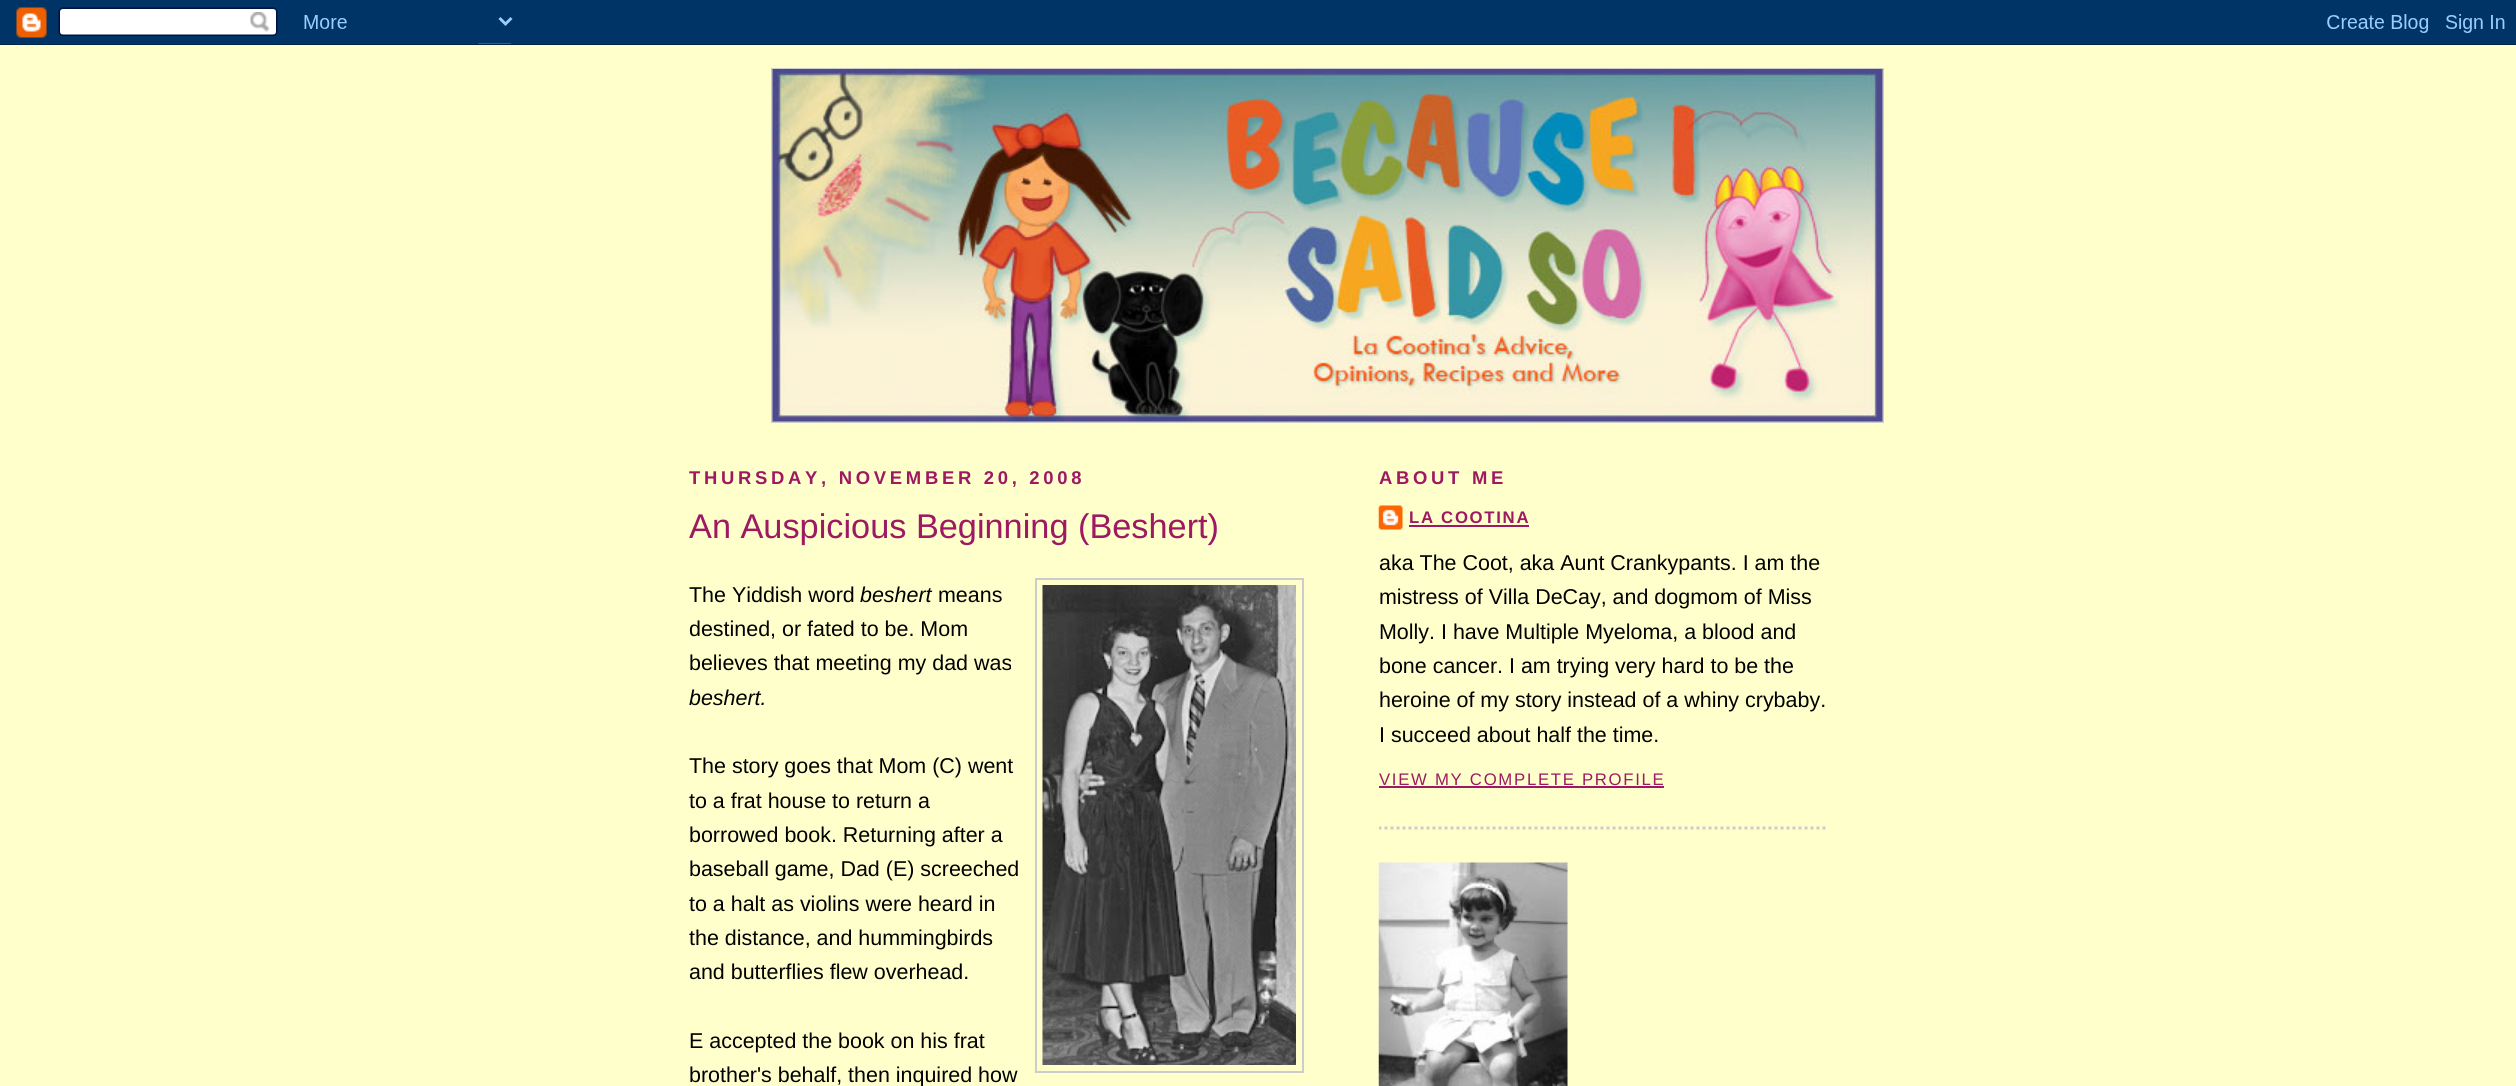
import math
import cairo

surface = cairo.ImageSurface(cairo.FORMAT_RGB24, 2516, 1086)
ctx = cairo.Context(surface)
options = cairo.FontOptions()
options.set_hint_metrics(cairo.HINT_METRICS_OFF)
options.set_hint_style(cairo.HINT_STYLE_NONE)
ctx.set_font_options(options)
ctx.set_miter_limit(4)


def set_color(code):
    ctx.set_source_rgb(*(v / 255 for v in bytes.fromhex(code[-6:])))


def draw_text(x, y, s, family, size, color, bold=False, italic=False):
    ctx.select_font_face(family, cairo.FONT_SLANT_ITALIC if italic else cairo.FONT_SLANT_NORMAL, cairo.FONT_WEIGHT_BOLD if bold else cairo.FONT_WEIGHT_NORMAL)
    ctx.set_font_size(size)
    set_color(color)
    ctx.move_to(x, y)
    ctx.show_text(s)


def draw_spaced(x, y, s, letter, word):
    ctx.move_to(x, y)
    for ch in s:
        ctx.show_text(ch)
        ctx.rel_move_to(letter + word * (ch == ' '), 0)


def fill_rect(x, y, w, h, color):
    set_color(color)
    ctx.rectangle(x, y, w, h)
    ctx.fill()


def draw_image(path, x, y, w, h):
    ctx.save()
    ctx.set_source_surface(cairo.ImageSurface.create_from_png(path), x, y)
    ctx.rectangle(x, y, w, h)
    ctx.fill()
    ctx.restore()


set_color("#ffffcc")
ctx.paint()
draw_image("assets/img1.png", 0, 0, 2516, 45)
ctx.rectangle(772, 69, 1111, 353)
set_color("#cccccc")
ctx.stroke()
draw_image("assets/img2.png", 772, 69, 1111, 353)
ctx.save()
ctx.rectangle(689, 438, 615, 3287)
ctx.clip()
ctx.select_font_face("Liberation Sans", cairo.FONT_SLANT_NORMAL, cairo.FONT_WEIGHT_BOLD)
ctx.set_font_size(18.45)
set_color("#9d1961")
draw_spaced(689, 484, "THURSDAY, NOVEMBER 20, 2008", 3.7, 0)
ctx.restore()
draw_text(689, 538, "An Auspicious Beginning (Beshert)", "Liberation Sans", 34.3, "#9d1961")
draw_text(689, 602, "The Yiddish word", "Liberation Sans", 21.45, "#000000")
draw_text(860, 602, "beshert", "Liberation Sans", 21.45, "#000000", italic=True)
draw_text(938, 602, "means", "Liberation Sans", 21.45, "#000000")
ctx.rectangle(1036, 579, 267, 493)
set_color("#cccccc")
ctx.stroke()
draw_image("assets/img3.png", 1042, 585, 254, 480)
draw_text(689, 636, "destined, or fated to be. Mom", "Liberation Sans", 21.45, "#000000")
draw_text(689, 670, "believes that meeting my dad was", "Liberation Sans", 21.45, "#000000")
draw_text(689, 705, "beshert.", "Liberation Sans", 21.45, "#000000", italic=True)
draw_text(689, 773, "The story goes that Mom (C) went", "Liberation Sans", 21.45, "#000000")
draw_text(689, 808, "to a frat house to return a", "Liberation Sans", 21.45, "#000000")
draw_text(689, 842, "borrowed book. Returning after a", "Liberation Sans", 21.45, "#000000")
draw_text(689, 876, "baseball game, Dad (E) screeched", "Liberation Sans", 21.45, "#000000")
draw_text(689, 911, "to a halt as violins were heard in", "Liberation Sans", 21.45, "#000000")
draw_text(689, 945, "the distance, and hummingbirds", "Liberation Sans", 21.45, "#000000")
draw_text(689, 979, "and butterflies flew overhead.", "Liberation Sans", 21.45, "#000000")
draw_text(689, 1048, "E accepted the book on his frat", "Liberation Sans", 21.45, "#000000")
draw_text(689, 1082, "brother's behalf, then inquired how", "Liberation Sans", 21.45, "#000000")
ctx.save()
ctx.rectangle(1379, 438, 450, 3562)
ctx.clip()
ctx.new_path()
ctx.move_to(1378.5, 828)
ctx.line_to(1828.5, 828)
set_color("#cccccc")
ctx.set_line_width(3)
ctx.set_dash([3, 3])
ctx.stroke()
ctx.restore()
ctx.select_font_face("Liberation Sans", cairo.FONT_SLANT_NORMAL, cairo.FONT_WEIGHT_BOLD)
ctx.set_font_size(18.45)
set_color("#9d1961")
draw_spaced(1379, 484, "ABOUT ME", 3.7, 0)
draw_image("assets/img4.png", 1378, 505, 25, 25)
ctx.set_font_size(16.75)
draw_spaced(1409, 523, "LA COOTINA", 1.7, 0)
fill_rect(1409, 525, 120, 2, "#9d1961")
draw_text(1379, 570, "aka The Coot, aka Aunt Crankypants. I am the", "Liberation Sans", 21.45, "#000000")
draw_text(1379, 604, "mistress of Villa DeCay, and dogmom of Miss", "Liberation Sans", 21.45, "#000000")
draw_text(1379, 639, "Molly. I have Multiple Myeloma, a blood and", "Liberation Sans", 21.45, "#000000")
draw_text(1379, 673, "bone cancer. I am trying very hard to be the", "Liberation Sans", 21.45, "#000000")
draw_text(1379, 707, "heroine of my story instead of a whiny crybaby.", "Liberation Sans", 21.45, "#000000")
draw_text(1379, 742, "I succeed about half the time.", "Liberation Sans", 21.45, "#000000")
ctx.set_font_size(16.75)
set_color("#9d1961")
draw_spaced(1379, 785, "VIEW MY COMPLETE PROFILE", 1.7, 0)
fill_rect(1379, 786, 285, 2, "#9d1961")
draw_image("assets/img5.png", 1378, 862, 190, 224)
surface.write_to_png("output.png")
